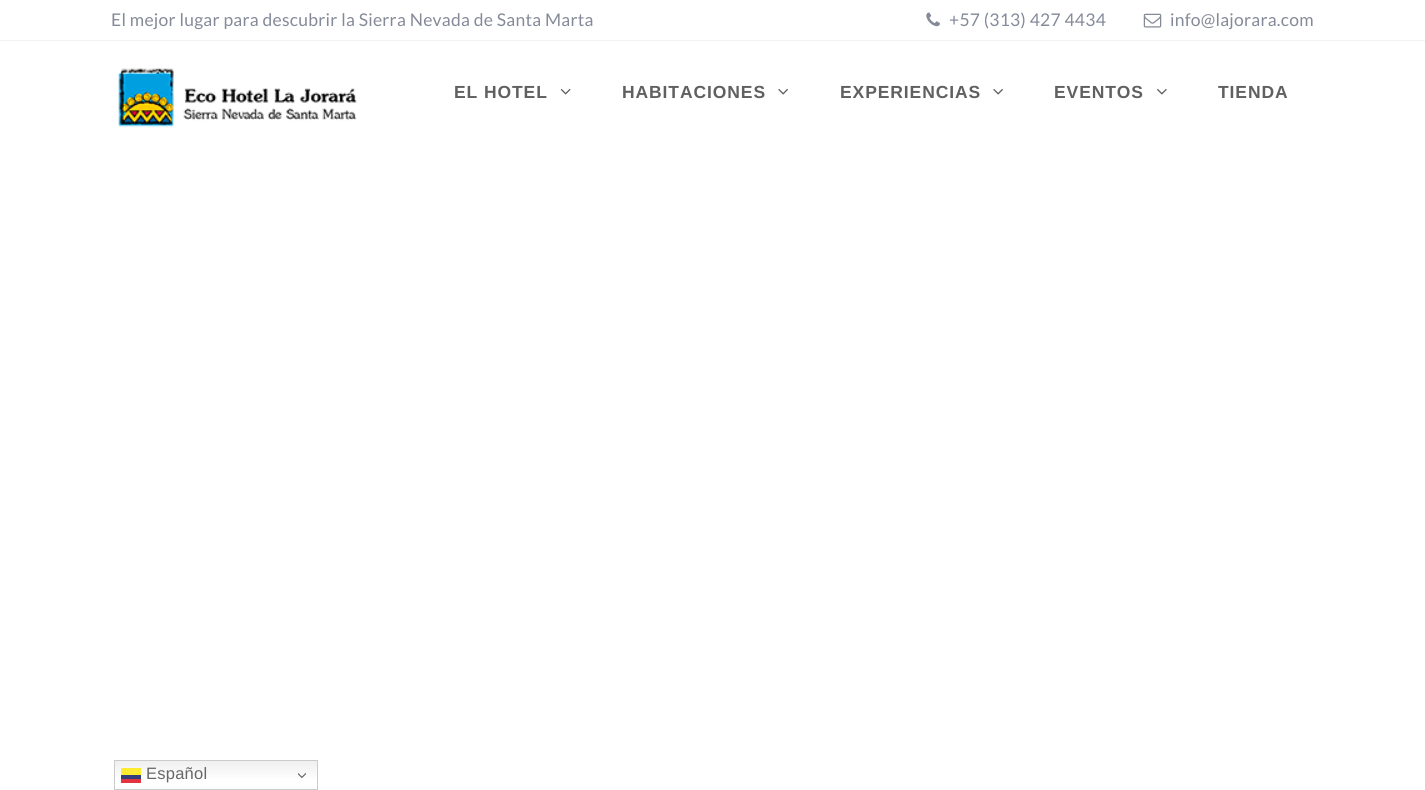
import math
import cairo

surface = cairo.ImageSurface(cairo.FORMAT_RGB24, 1425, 790)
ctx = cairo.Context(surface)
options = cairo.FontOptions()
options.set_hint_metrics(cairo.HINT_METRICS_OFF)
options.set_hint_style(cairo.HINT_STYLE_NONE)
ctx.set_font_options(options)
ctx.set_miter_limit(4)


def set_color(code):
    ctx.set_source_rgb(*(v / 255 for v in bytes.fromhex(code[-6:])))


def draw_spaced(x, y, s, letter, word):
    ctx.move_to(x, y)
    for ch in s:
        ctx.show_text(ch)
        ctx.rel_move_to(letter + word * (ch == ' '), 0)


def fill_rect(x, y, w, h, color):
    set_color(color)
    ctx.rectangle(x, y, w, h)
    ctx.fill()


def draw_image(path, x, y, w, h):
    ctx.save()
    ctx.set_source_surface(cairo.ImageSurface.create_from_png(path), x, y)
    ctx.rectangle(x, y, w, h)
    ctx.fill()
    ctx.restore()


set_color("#ffffff")
ctx.paint()
fill_rect(0, 40, 1425, 1, "#f2f2f2")
ctx.select_font_face("Lato")
ctx.set_font_size(17.5)
set_color("#858a99")
draw_spaced(111, 26, "El mejor lugar para descubrir la Sierra Nevada de Santa Marta", 0.25, 0)
draw_image("assets/img1.png", 926, 12, 14, 15)
draw_spaced(949, 26, "+57 (313) 427 4434", 0.25, 0)
draw_image("assets/img2.png", 1143, 13, 19, 15)
draw_spaced(1170, 26, "info@lajorara.com", 0.25, 0)
draw_image("assets/img3.png", 118, 68, 239, 59)
ctx.select_font_face("Liberation Sans", cairo.FONT_SLANT_NORMAL, cairo.FONT_WEIGHT_BOLD)
set_color("#606060")
draw_spaced(454, 98, "EL HOTEL", 0.9, 0)
draw_image("assets/img4.png", 560, 88, 11, 7)
draw_spaced(622, 98, "HABITACIONES", 0.9, 0)
draw_image("assets/img5.png", 778, 88, 10, 7)
draw_spaced(840, 98, "EXPERIENCIAS", 0.9, 0)
draw_image("assets/img5.png", 993, 88, 10, 7)
draw_spaced(1054, 98, "EVENTOS", 0.9, 0)
draw_image("assets/img6.png", 1157, 88, 10, 7)
draw_spaced(1218, 98, "TIENDA", 0.9, 0)
gradient = cairo.LinearGradient(216, 760, 216, 790)
gradient.add_color_stop_rgba(0, 0.937, 0.937, 0.937, 1)
gradient.add_color_stop_rgba(0.7, 1, 1, 1, 1)
ctx.set_source(gradient)
ctx.rectangle(115, 761, 202, 17)
ctx.fill()
gradient = cairo.LinearGradient(216, 760, 216, 790)
gradient.add_color_stop_rgba(0, 0.988, 0.914, 0.188, 1)
gradient.add_color_stop_rgba(0.7, 1, 0.929, 0.2, 1)
ctx.set_source(gradient)
ctx.rectangle(121, 768, 20, 7)
ctx.fill()
ctx.rectangle(114.5, 760.5, 203, 29)
set_color("#cccccc")
ctx.set_line_width(1)
ctx.stroke()
fill_rect(121, 775, 20, 4, "#333f7c")
ctx.select_font_face("Liberation Sans")
ctx.set_font_size(16.5)
set_color("#666666")
draw_spaced(146, 779, "Español", 0.25, 0)
draw_image("assets/img7.png", 298, 773, 8, 6)
fill_rect(121, 779, 20, 4, "#e13340")
surface.write_to_png("output.png")
